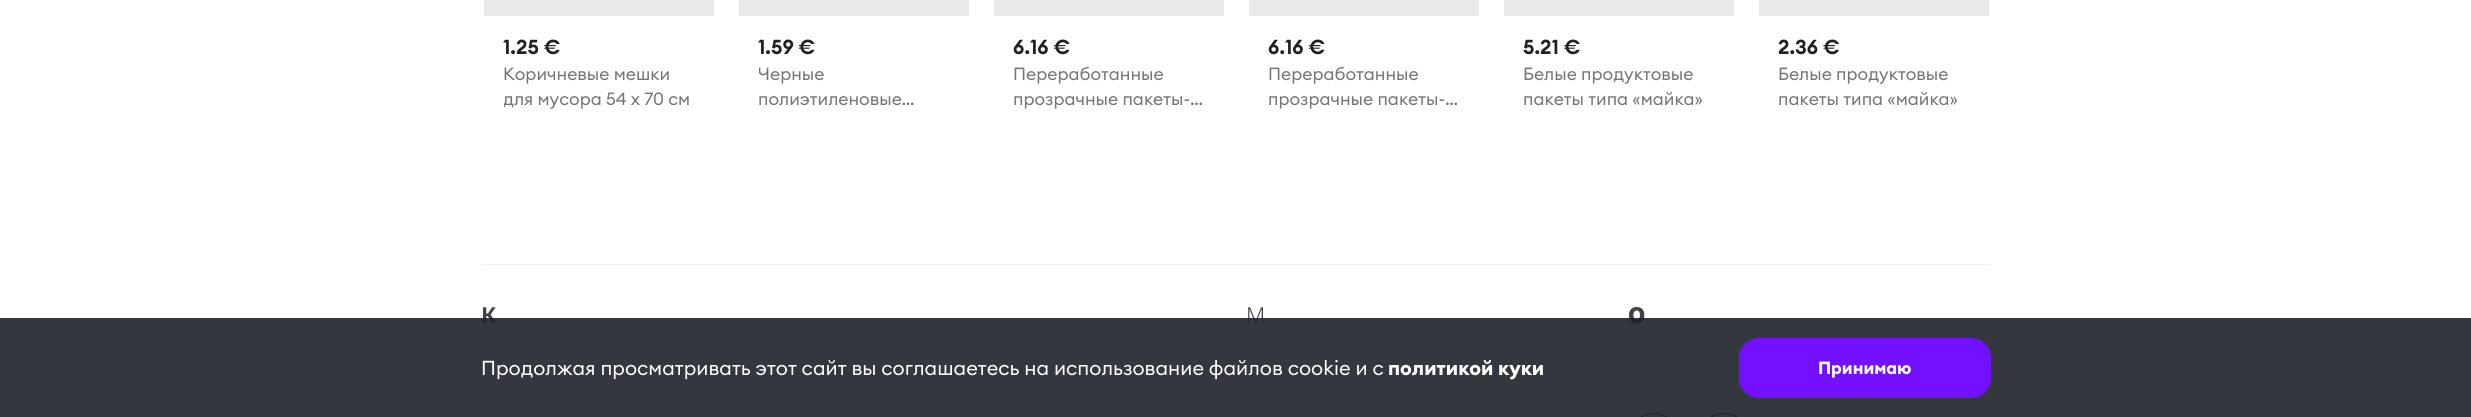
import math
import cairo

surface = cairo.ImageSurface(cairo.FORMAT_RGB24, 2471, 417)
ctx = cairo.Context(surface)
options = cairo.FontOptions()
options.set_hint_metrics(cairo.HINT_METRICS_OFF)
options.set_hint_style(cairo.HINT_STYLE_NONE)
ctx.set_font_options(options)
ctx.set_miter_limit(4)


def set_color(code):
    ctx.set_source_rgb(*(v / 255 for v in bytes.fromhex(code[-6:])))


def draw_text(x, y, s, family, size, color, bold=False, italic=False):
    ctx.select_font_face(family, cairo.FONT_SLANT_ITALIC if italic else cairo.FONT_SLANT_NORMAL, cairo.FONT_WEIGHT_BOLD if bold else cairo.FONT_WEIGHT_NORMAL)
    ctx.set_font_size(size)
    set_color(color)
    ctx.move_to(x, y)
    ctx.show_text(s)


def fill_rect(x, y, w, h, color):
    set_color(color)
    ctx.rectangle(x, y, w, h)
    ctx.fill()


def rounded_rect(x, y, w, h, r):
    ctx.new_sub_path()
    for i, (u, v) in enumerate([(x + w - r, y + h - r), (x + r, y + h - r), (x + r, y + r), (x + w - r, y + r)]):
        ctx.arc(u, v, r, i * math.pi / 2, (i + 1) * math.pi / 2)
    ctx.close_path()


set_color("#ffffff")
ctx.paint()
fill_rect(484, 0, 230, 16, "#eae9e9")
draw_text(503, 54, "1.25 €", "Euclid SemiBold", 20, "#212121")
draw_text(503, 80, "Коричневые мешки", "Euclid", 17.5, "#757575")
ctx.save()
ctx.rectangle(504, 61, 190, 50)
ctx.clip()
draw_text(503, 105, "для мусора 54 х 70 см", "Euclid", 17.5, "#757575")
ctx.restore()
fill_rect(739, 0, 230, 16, "#eae9e9")
draw_text(758, 54, "1.59 €", "Euclid SemiBold", 20, "#212121")
ctx.save()
ctx.rectangle(759, 61, 190, 50)
ctx.clip()
draw_text(758, 80, "Черные", "Euclid", 17.5, "#757575")
ctx.restore()
draw_text(758, 105, "полиэтиленовые…", "Euclid", 17.5, "#757575")
fill_rect(994, 0, 230, 16, "#eae9e9")
draw_text(1013, 54, "6.16 €", "Euclid SemiBold", 20, "#212121")
draw_text(1013, 80, "Переработанные", "Euclid", 17.5, "#757575")
draw_text(1013, 105, "прозрачные пакеты-…", "Euclid", 17.5, "#757575")
fill_rect(1249, 0, 230, 16, "#eae9e9")
draw_text(1268, 54, "6.16 €", "Euclid SemiBold", 20, "#212121")
draw_text(1268, 80, "Переработанные", "Euclid", 17.5, "#757575")
draw_text(1268, 105, "прозрачные пакеты-…", "Euclid", 17.5, "#757575")
fill_rect(1504, 0, 230, 16, "#eae9e9")
draw_text(1523, 54, "5.21 €", "Euclid SemiBold", 20, "#212121")
draw_text(1523, 80, "Белые продуктовые", "Euclid", 17.5, "#757575")
draw_text(1523, 105, "пакеты типа «майка»", "Euclid", 17.5, "#757575")
fill_rect(1759, 0, 230, 16, "#eae9e9")
draw_text(1778, 54, "2.36 €", "Euclid SemiBold", 20, "#212121")
draw_text(1778, 80, "Белые продуктовые", "Euclid", 17.5, "#757575")
draw_text(1778, 105, "пакеты типа «майка»", "Euclid", 17.5, "#757575")
fill_rect(481, 264, 1510, 1, "#eeeeee")
draw_text(481, 323, "К", "Noto Sans", 22, "#424242", bold=True)
draw_text(1246, 323, "М", "Noto Sans Light", 22, "#424242")
draw_text(1628, 323, "О", "Noto Sans Black", 22, "#424242")
rounded_rect(1629.5, 413.5, 49, 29, 24.5)
set_color("#212121")
ctx.set_line_width(1)
ctx.stroke()
rounded_rect(1699.5, 413.5, 49, 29, 24.5)
ctx.stroke()
ctx.set_source_rgba(0.122, 0.133, 0.165, 0.9)
ctx.rectangle(0, 318, 2471, 99)
ctx.fill()
draw_text(481, 375, "Продолжая просматривать этот сайт вы соглашаетесь на использование файлов cookie и с", "Euclid", 20, "#ffffff")
draw_text(1388, 375, "политикой куки", "Euclid", 20, "#ffffff", bold=True)
set_color("#7210ff")
rounded_rect(1739, 338, 252, 60, 20)
ctx.fill()
draw_text(1818, 374, "Принимаю", "Euclid", 17.5, "#ffffff", bold=True)
surface.write_to_png("output.png")
